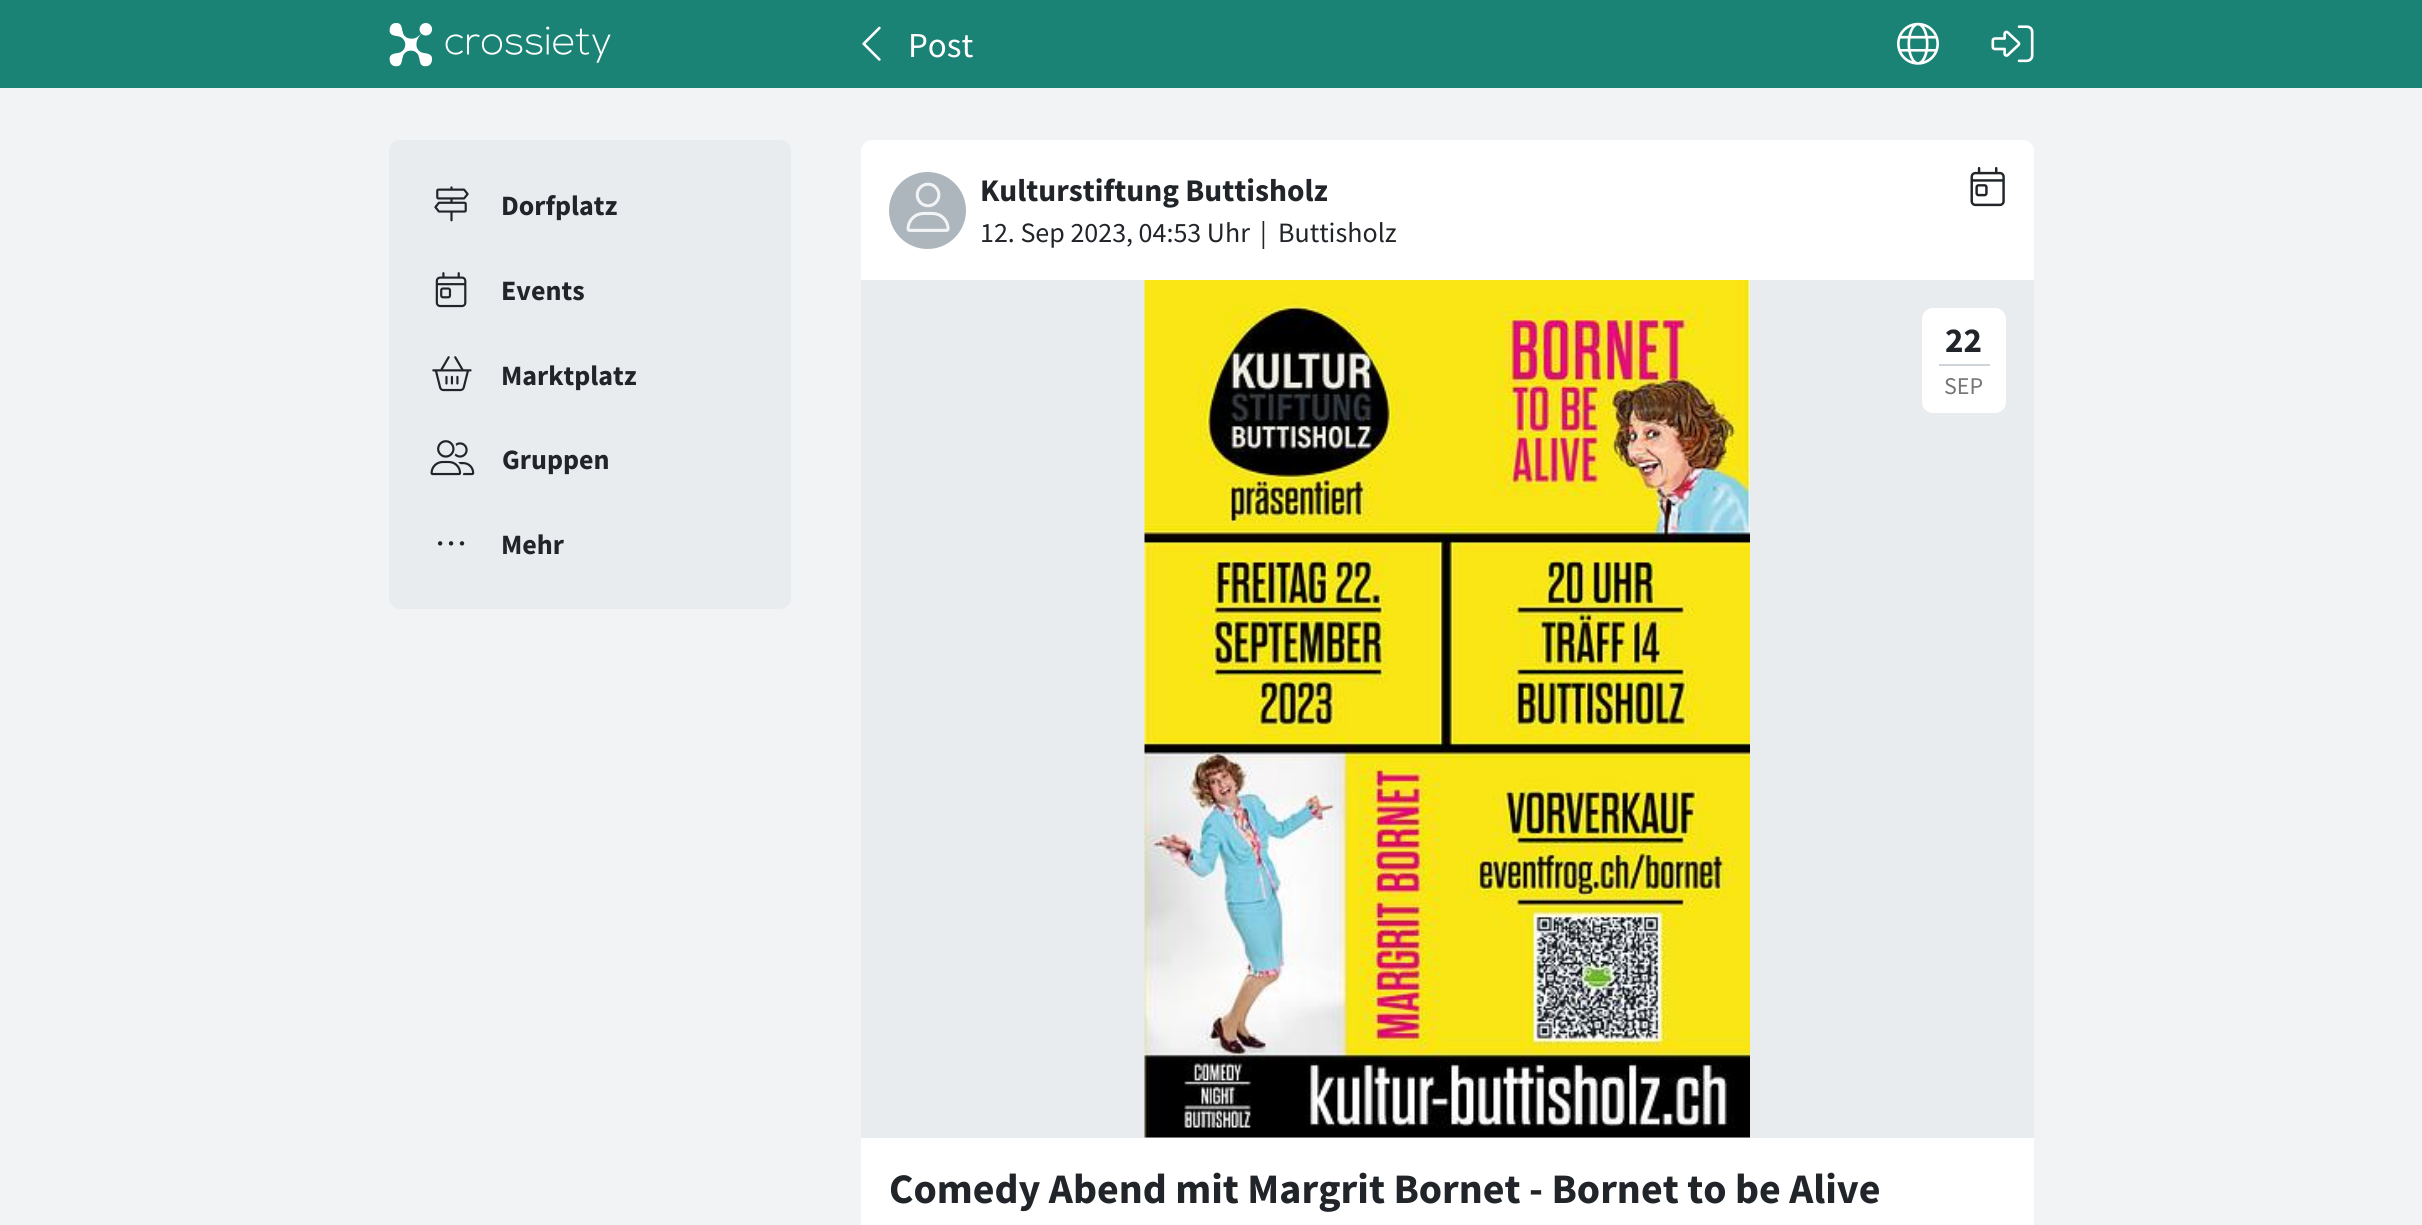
import math
import cairo

surface = cairo.ImageSurface(cairo.FORMAT_RGB24, 2422, 1225)
ctx = cairo.Context(surface)
options = cairo.FontOptions()
options.set_hint_metrics(cairo.HINT_METRICS_OFF)
options.set_hint_style(cairo.HINT_STYLE_NONE)
ctx.set_font_options(options)
ctx.set_miter_limit(4)


def set_color(code):
    ctx.set_source_rgb(*(v / 255 for v in bytes.fromhex(code[-6:])))


def draw_text(x, y, s, family, size, color, bold=False, italic=False):
    ctx.select_font_face(family, cairo.FONT_SLANT_ITALIC if italic else cairo.FONT_SLANT_NORMAL, cairo.FONT_WEIGHT_BOLD if bold else cairo.FONT_WEIGHT_NORMAL)
    ctx.set_font_size(size)
    set_color(color)
    ctx.move_to(x, y)
    ctx.show_text(s)


def fill_rect(x, y, w, h, color):
    set_color(color)
    ctx.rectangle(x, y, w, h)
    ctx.fill()


def rounded_rect(x, y, w, h, r):
    ctx.new_sub_path()
    for i, (u, v) in enumerate([(x + w - r, y + h - r), (x + r, y + h - r), (x + r, y + r), (x + w - r, y + r)]):
        ctx.arc(u, v, r, i * math.pi / 2, (i + 1) * math.pi / 2)
    ctx.close_path()


def draw_image(path, x, y, w, h):
    ctx.save()
    ctx.set_source_surface(cairo.ImageSurface.create_from_png(path), x, y)
    ctx.rectangle(x, y, w, h)
    ctx.fill()
    ctx.restore()


set_color("#f1f3f5")
ctx.paint()
fill_rect(0, 0, 2422, 88, "#1b8375")
draw_image("assets/img1.png", 389, 23, 222, 44)
draw_image("assets/img2.png", 862, 26, 19, 35)
draw_text(908, 57, "Post", "Source Sans Pro", 35, "#ffffff")
draw_image("assets/img3.png", 1897, 22, 42, 43)
draw_image("assets/img4.png", 1991, 25, 43, 38)
set_color("#e9ecef")
rounded_rect(389, 140, 402, 469, 11)
ctx.fill()
draw_image("assets/img5.png", 434, 186, 35, 36)
draw_text(501, 215, "Dorfplatz", "Source Sans Pro", 28, "#212529", bold=True)
draw_image("assets/img6.png", 435, 272, 32, 36)
draw_text(501, 300, "Events", "Source Sans Pro", 28, "#212529", bold=True)
draw_image("assets/img7.png", 432, 356, 40, 36)
draw_text(501, 385, "Marktplatz", "Source Sans Pro", 28, "#212529", bold=True)
draw_image("assets/img8.png", 430, 440, 45, 36)
draw_text(502, 469, "Gruppen", "Source Sans Pro", 28, "#212529", bold=True)
draw_image("assets/img9.png", 437, 541, 28, 5)
draw_text(501, 554, "Mehr", "Source Sans Pro", 28, "#212529", bold=True)
set_color("#ffffff")
rounded_rect(861, 140, 1173, 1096, 11)
ctx.fill()
set_color("#adb5bd")
ctx.arc(927.5, 210.5, 38.5, 0, 2 * math.pi)
ctx.fill()
draw_image("assets/img10.png", 906, 182, 44, 50)
draw_text(980, 201, "Kulturstiftung Buttisholz", "Source Sans Pro", 31.5, "#212529", bold=True)
draw_text(980, 242, "12. Sep 2023, 04:53 Uhr", "Source Sans Pro", 28, "#212529")
draw_text(1260, 242, "|", "Source Sans Pro", 28, "#212529")
draw_text(1278, 242, "Buttisholz", "Source Sans Pro", 28, "#212529")
draw_image("assets/img11.png", 1970, 167, 35, 40)
fill_rect(861, 280, 1173, 858, "#e9ecef")
draw_image("assets/img12.png", 1144, 280, 606, 858)
set_color("#ffffff")
rounded_rect(1922, 308, 84, 105, 11)
ctx.fill()
draw_text(1945, 352, "22", "Source Sans Pro", 35, "#212529", bold=True)
fill_rect(1939, 364, 51, 2, "#ced4da")
draw_text(1944, 394, "SEP", "Source Sans Pro", 24, "#767676")
draw_text(889, 1203, "Comedy Abend mit Margrit Bornet - Bornet to be Alive", "Source Sans Pro", 42, "#212529", bold=True)
surface.write_to_png("output.png")
